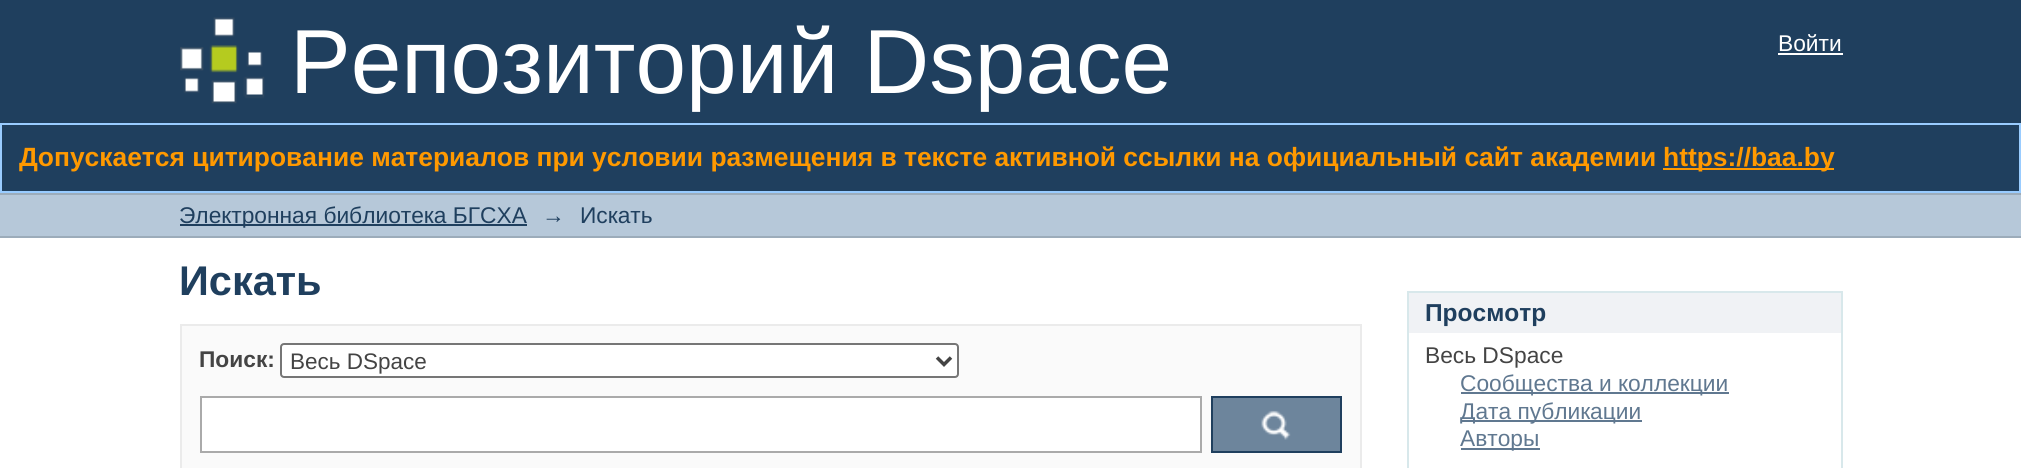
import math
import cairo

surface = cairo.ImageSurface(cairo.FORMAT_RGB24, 2021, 468)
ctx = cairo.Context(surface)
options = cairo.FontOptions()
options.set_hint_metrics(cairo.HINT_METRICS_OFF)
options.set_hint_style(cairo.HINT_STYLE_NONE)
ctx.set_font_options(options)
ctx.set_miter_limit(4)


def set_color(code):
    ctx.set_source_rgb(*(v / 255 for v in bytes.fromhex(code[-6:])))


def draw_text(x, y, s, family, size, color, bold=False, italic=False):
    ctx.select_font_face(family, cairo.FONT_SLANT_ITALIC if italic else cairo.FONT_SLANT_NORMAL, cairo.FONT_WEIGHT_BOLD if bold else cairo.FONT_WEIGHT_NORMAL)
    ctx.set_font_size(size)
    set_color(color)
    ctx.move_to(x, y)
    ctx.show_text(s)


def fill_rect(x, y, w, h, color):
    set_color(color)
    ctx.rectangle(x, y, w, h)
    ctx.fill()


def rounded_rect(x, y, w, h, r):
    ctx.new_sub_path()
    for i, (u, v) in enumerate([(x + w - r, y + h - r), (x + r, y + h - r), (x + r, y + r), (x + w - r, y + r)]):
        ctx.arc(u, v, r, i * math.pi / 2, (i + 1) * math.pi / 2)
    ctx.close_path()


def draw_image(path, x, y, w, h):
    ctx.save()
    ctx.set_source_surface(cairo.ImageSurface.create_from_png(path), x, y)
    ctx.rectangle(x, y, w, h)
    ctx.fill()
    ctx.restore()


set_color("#ffffff")
ctx.paint()
fill_rect(0, 0, 2021, 191, "#1f3f5e")
draw_image("assets/img1.png", 180, 17, 85, 87)
draw_text(290, 93, "Репозиторий Dspace", "Liberation Sans", 91, "#ffffff")
draw_text(1778, 51, "Войти", "Liberation Sans", 22.75, "#ffffff")
fill_rect(1778, 53, 65, 2, "#ffffff")
ctx.rectangle(1, 124, 2019, 68)
set_color("#99ccff")
ctx.stroke()
draw_text(19, 166, "Допускается цитирование материалов при условии размещения в тексте активной ссылки на официальный сайт академии", "Liberation Sans", 26.4, "#ff9900", bold=True)
fill_rect(1663, 168, 171, 2, "#ff9900")
draw_text(1663, 166, "https://baa.by", "Liberation Sans", 26.4, "#ff9900", bold=True)
fill_rect(0, 195, 2021, 41, "#b6c8d9")
fill_rect(0, 193, 2021, 2, "#9cacba")
fill_rect(0, 236, 2021, 2, "#9cacba")
fill_rect(180, 224, 347, 2, "#1f3f5e")
draw_text(179, 223, "Электронная библиотека БГСХА", "Liberation Sans", 22.75, "#1f3f5e")
draw_text(542, 223, "→", "Liberation Sans", 22.75, "#1f3f5e")
draw_text(580, 223, "Искать", "Liberation Sans", 22.75, "#1f3f5e")
draw_text(179, 295, "Искать", "Liberation Sans", 41.5, "#1f3f5e", bold=True)
set_color("#fafafa")
ctx.rectangle(181, 325, 1180, 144)
ctx.fill_preserve()
set_color("#ebebeb")
ctx.stroke()
draw_text(199, 367, "Поиск:", "Liberation Sans", 22.75, "#444444", bold=True)
set_color("#ffffff")
rounded_rect(281, 344, 677, 33, 3)
ctx.fill_preserve()
set_color("#767676")
ctx.stroke()
ctx.new_path()
ctx.move_to(937, 357.5)
ctx.line_to(944, 364.5)
ctx.line_to(951, 357.5)
set_color("#444444")
ctx.set_line_width(3.5)
ctx.stroke()
draw_text(290, 369, "Весь DSpace", "Liberation Sans", 22.5, "#444444")
set_color("#ffffff")
ctx.rectangle(201, 397, 1000, 55)
ctx.fill_preserve()
set_color("#aaaaaa")
ctx.set_line_width(2)
ctx.stroke()
fill_rect(1213, 398, 127, 53, "#6d859c")
draw_image("assets/img2.png", 1261, 410, 30, 30)
ctx.rectangle(1212, 397, 129, 55)
set_color("#1f3f5e")
ctx.stroke()
fill_rect(1409, 293, 432, 40, "#f0f2f5")
fill_rect(1407, 291, 436, 2, "#d8e8eb")
fill_rect(1841, 291, 2, 177, "#d8e8eb")
fill_rect(1407, 291, 2, 177, "#d8e8eb")
draw_text(1425, 321, "Просмотр", "Liberation Sans", 24.5, "#1f3f5e", bold=True)
draw_text(1425, 363, "Весь DSpace", "Liberation Sans", 22.75, "#444444")
fill_rect(1461, 392, 268, 2, "#607890")
draw_text(1460, 391, "Сообщества и коллекции", "Liberation Sans", 22.75, "#607890")
fill_rect(1461, 420, 181, 2, "#607890")
draw_text(1460, 419, "Дата публикации", "Liberation Sans", 22.75, "#607890")
fill_rect(1461, 448, 79, 2, "#607890")
draw_text(1460, 446, "Авторы", "Liberation Sans", 22.75, "#607890")
surface.write_to_png("output.png")
